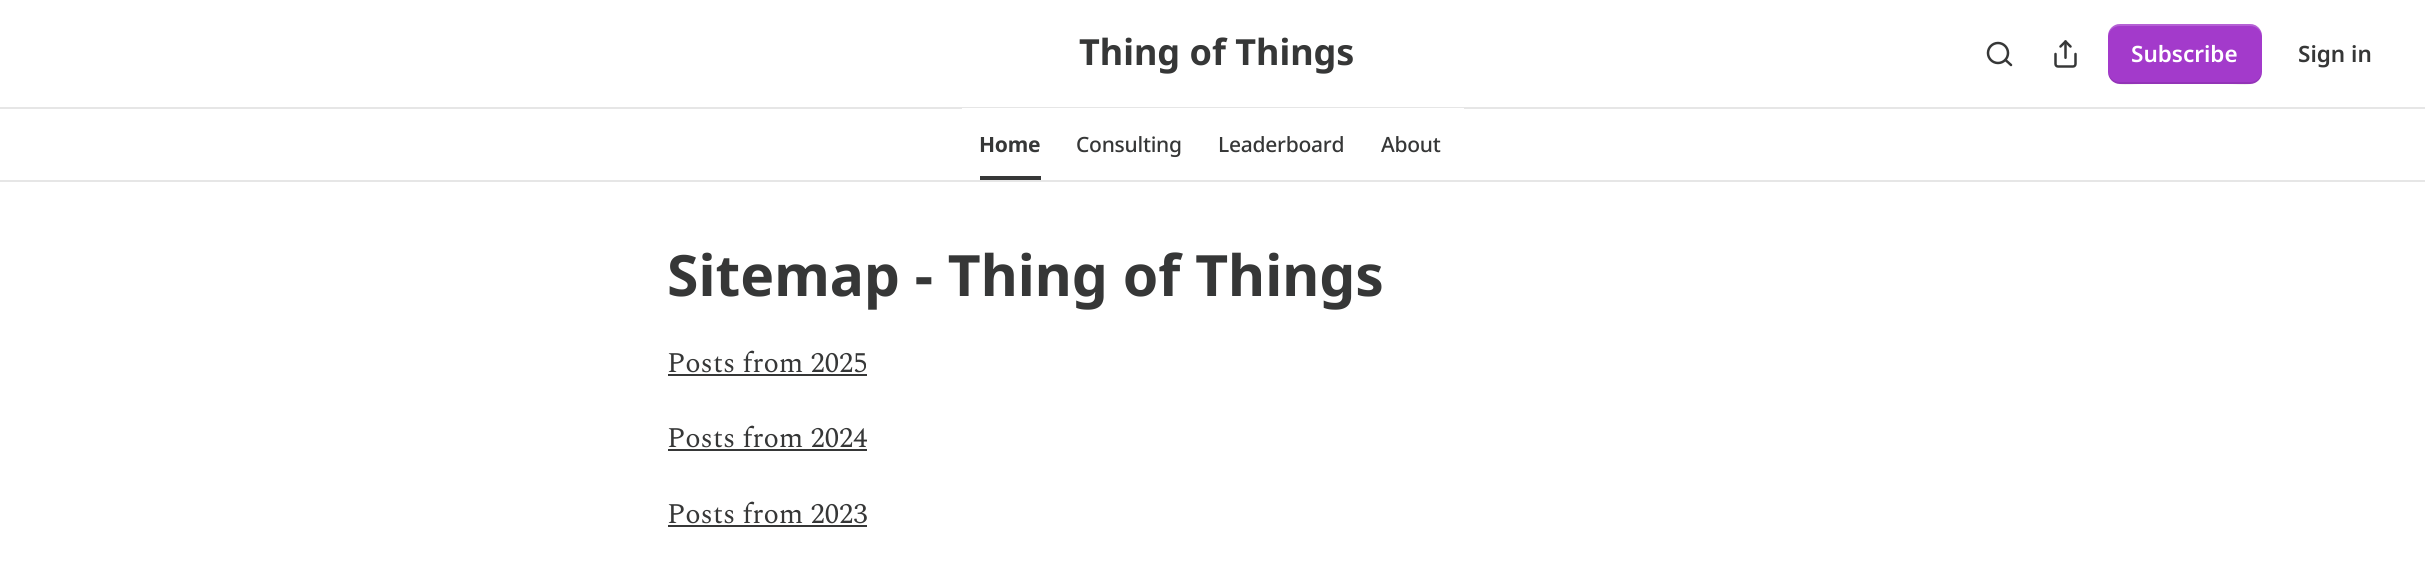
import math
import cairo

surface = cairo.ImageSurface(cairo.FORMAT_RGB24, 2425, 565)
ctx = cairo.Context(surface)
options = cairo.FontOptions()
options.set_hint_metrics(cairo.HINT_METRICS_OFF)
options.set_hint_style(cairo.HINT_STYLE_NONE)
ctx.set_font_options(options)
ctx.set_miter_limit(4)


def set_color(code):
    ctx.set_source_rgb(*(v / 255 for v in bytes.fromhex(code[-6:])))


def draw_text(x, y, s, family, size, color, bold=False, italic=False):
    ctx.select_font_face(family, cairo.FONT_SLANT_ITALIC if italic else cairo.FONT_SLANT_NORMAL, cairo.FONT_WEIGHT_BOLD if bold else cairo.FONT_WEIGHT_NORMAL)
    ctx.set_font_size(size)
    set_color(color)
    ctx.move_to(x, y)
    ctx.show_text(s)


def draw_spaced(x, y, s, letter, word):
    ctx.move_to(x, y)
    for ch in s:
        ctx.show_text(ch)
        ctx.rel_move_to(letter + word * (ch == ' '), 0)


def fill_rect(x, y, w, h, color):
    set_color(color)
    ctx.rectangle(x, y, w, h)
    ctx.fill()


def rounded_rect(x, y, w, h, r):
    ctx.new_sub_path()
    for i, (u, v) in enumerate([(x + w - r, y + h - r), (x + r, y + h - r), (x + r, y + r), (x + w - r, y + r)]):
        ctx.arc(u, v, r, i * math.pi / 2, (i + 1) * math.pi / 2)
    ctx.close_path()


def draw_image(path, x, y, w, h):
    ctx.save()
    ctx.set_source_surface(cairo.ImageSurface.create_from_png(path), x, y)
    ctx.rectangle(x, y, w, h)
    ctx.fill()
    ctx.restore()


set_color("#ffffff")
ctx.paint()
draw_text(1079, 65, "Thing of Things", "Noto Sans", 36, "#363737", bold=True)
ctx.new_path()
ctx.arc(1998, 53, 10, 0, 2 * math.pi)
ctx.set_line_width(2.5)
ctx.stroke()
ctx.new_path()
ctx.move_to(2011, 65)
ctx.line_to(2005.5, 60)
ctx.set_line_cap(cairo.LINE_CAP_ROUND)
ctx.set_line_join(cairo.LINE_JOIN_ROUND)
ctx.stroke()
draw_image("assets/img1.png", 2054, 40, 23, 28)
set_color("#a33acb")
rounded_rect(2108, 24, 154, 60, 12)
ctx.fill()
ctx.set_source_rgba(0, 0, 0, 0.1)
ctx.new_path()
ctx.move_to(2108, 70)
ctx.curve_to(2108, 89, 2128, 84, 2142, 84)
ctx.line_to(2228, 84)
ctx.curve_to(2242, 84, 2262, 89, 2262, 70)
ctx.curve_to(2262, 77, 2257, 82, 2250, 82)
ctx.line_to(2120, 82)
ctx.curve_to(2113, 82, 2108, 77, 2108, 70)
ctx.close_path()
ctx.fill()
ctx.set_source_rgba(1, 1, 1, 0.2)
ctx.new_path()
ctx.move_to(2120, 26)
ctx.line_to(2250, 26)
ctx.curve_to(2257, 26, 2262, 31, 2262, 38)
ctx.curve_to(2262, 19, 2242, 24, 2228, 24)
ctx.line_to(2142, 24)
ctx.curve_to(2128, 24, 2108, 19, 2108, 38)
ctx.curve_to(2108, 31, 2113, 26, 2120, 26)
ctx.close_path()
ctx.fill()
draw_text(2131, 62, "Subscribe", "Noto Sans SemiBold", 22.5, "#ffffff")
draw_text(2298, 62, "Sign in", "Noto Sans SemiBold", 22.5, "#363737")
fill_rect(0, 107, 2425, 2, "#e6e6e6")
fill_rect(0, 180, 2425, 2, "#e6e6e6")
fill_rect(962, 108, 502, 1, "#ffffff")
fill_rect(980, 176, 61, 4, "#363737")
ctx.select_font_face("Noto Sans", cairo.FONT_SLANT_NORMAL, cairo.FONT_WEIGHT_BOLD)
ctx.set_font_size(21)
draw_spaced(979, 152, "Home", -0.25, 0)
ctx.select_font_face("Noto Sans Medium")
draw_spaced(1076, 152, "Consulting", -0.25, 0)
draw_spaced(1218, 152, "Leaderboard", -0.25, 0)
draw_spaced(1381, 152, "About", -0.25, 0)
draw_text(667, 296, "Sitemap - Thing of Things", "Noto Sans", 57, "#363737", bold=True)
draw_text(667, 372, "Posts from 2025", "Spectral", 28.5, "#363737")
fill_rect(668, 374, 199, 2, "#363737")
draw_text(667, 447, "Posts from 2024", "Spectral", 28.5, "#363737")
fill_rect(668, 449, 199, 2, "#363737")
draw_text(667, 523, "Posts from 2023", "Spectral", 28.5, "#363737")
fill_rect(668, 525, 199, 2, "#363737")
surface.write_to_png("output.png")
